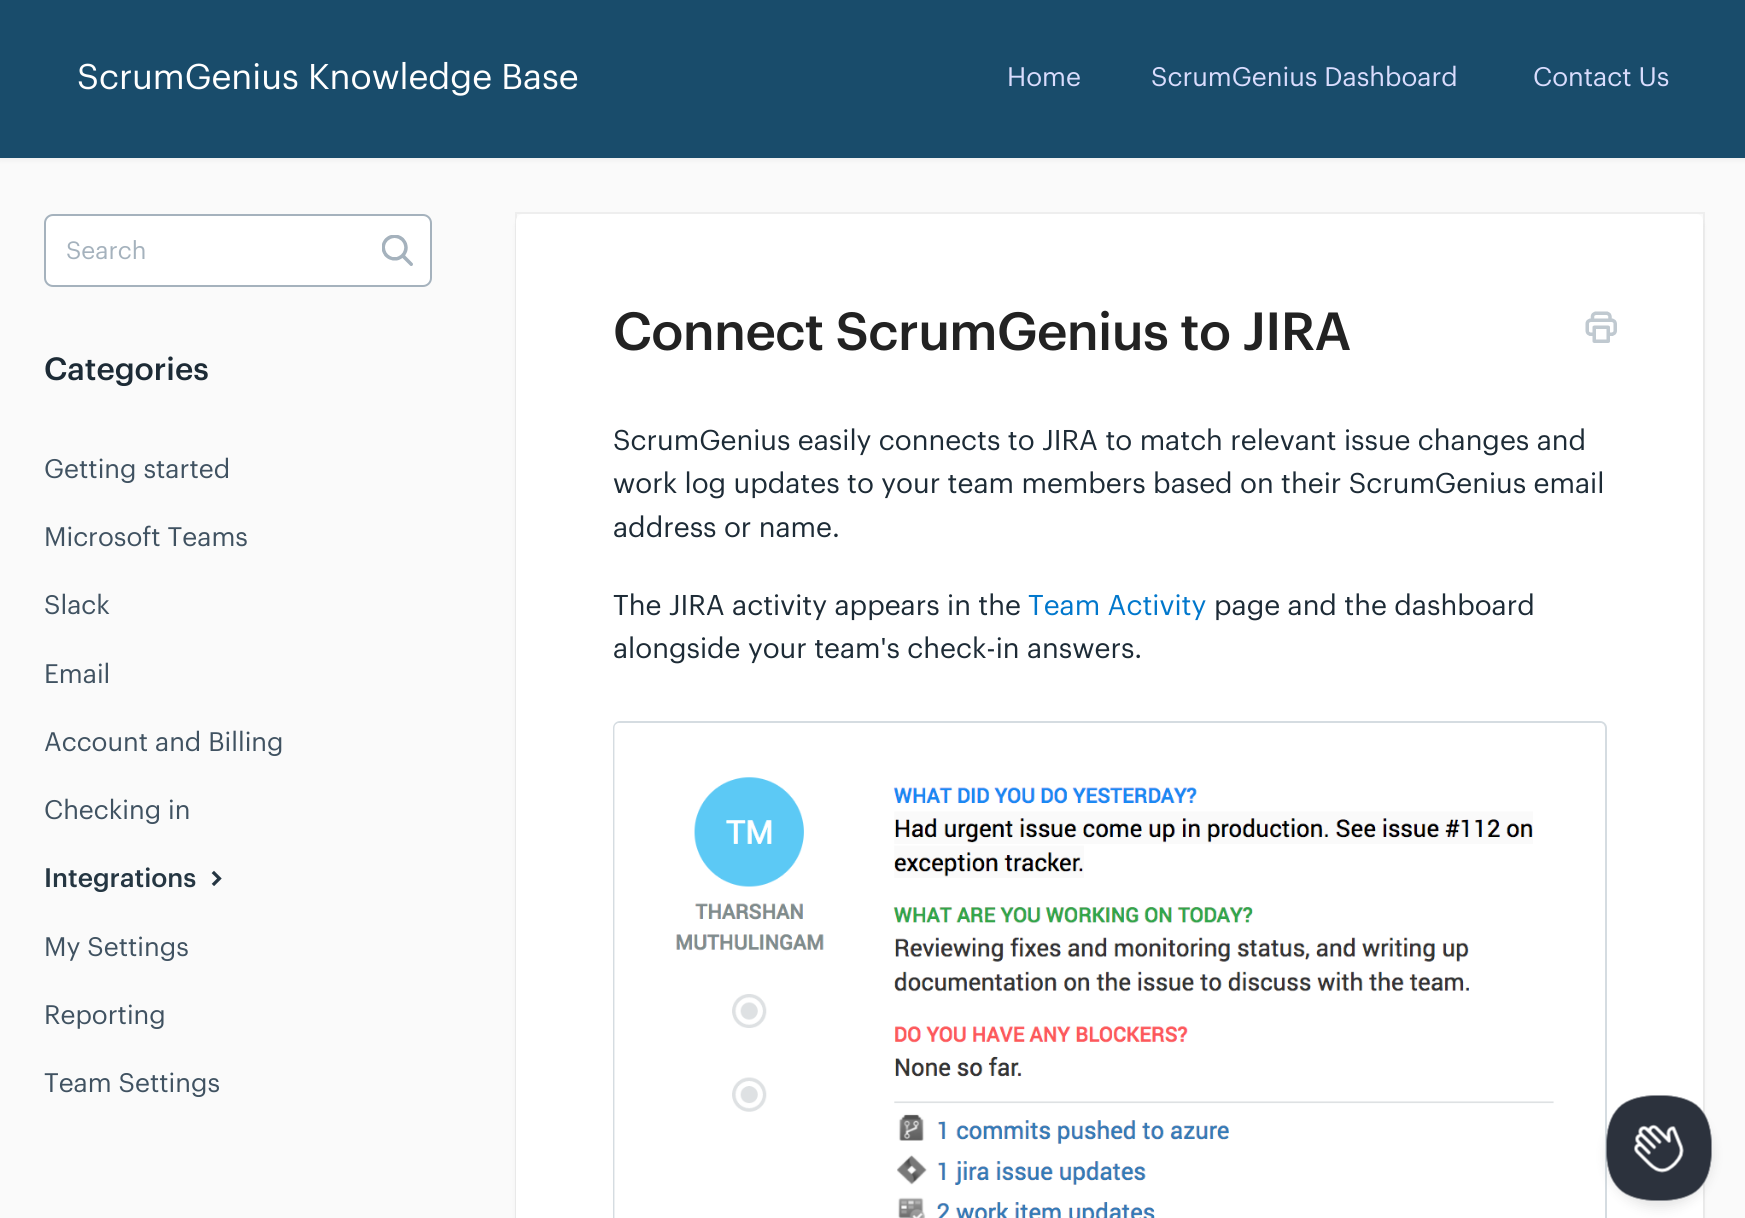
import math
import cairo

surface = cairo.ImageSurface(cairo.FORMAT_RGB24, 1745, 1218)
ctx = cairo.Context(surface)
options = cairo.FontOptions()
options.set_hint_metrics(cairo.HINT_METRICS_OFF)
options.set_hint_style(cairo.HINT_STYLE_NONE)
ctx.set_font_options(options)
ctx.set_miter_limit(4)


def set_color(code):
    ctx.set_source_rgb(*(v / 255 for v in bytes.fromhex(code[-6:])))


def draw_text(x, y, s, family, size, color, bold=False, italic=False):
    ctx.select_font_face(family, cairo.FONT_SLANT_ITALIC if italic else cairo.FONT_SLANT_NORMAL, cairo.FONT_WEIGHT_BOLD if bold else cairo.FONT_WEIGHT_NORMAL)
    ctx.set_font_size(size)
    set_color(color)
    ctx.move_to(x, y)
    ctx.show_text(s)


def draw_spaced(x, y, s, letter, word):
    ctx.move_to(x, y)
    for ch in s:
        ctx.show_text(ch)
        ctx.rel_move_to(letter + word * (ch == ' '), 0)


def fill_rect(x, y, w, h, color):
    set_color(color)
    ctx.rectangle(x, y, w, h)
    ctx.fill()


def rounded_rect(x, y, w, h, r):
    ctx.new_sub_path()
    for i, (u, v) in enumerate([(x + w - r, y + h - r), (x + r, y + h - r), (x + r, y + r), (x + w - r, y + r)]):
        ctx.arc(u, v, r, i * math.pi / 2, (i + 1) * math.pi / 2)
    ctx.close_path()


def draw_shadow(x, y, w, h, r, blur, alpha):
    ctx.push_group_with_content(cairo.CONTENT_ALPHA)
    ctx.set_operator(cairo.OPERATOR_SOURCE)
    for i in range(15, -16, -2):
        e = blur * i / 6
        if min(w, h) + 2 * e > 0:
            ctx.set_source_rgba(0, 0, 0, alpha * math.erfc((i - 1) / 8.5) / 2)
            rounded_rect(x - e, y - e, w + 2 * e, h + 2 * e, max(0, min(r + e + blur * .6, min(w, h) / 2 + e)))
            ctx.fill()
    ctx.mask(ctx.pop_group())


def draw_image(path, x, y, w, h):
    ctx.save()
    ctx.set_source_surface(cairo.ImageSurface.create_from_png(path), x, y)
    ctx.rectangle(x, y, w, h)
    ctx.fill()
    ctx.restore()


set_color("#fafafa")
ctx.paint()
set_color("#000000")
draw_shadow(0, 2, 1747, 157, 0, 3.5, 0.07)
fill_rect(0, 0, 1745, 158, "#194c6b")
draw_text(77, 89, "ScrumGenius Knowledge Base", "Graphik", 35, "#ffffff")
draw_text(1007, 86, "Home", "Graphik", 26.25, "#d9dcfd")
draw_text(1151, 86, "ScrumGenius Dashboard", "Graphik", 26.25, "#d9dcfd")
draw_text(1533, 86, "Contact Us", "Graphik", 26.25, "#d9dcfd")
set_color("#ffffff")
rounded_rect(45, 215, 386, 71, 8)
ctx.fill_preserve()
set_color("#a5b2bd")
ctx.stroke()
draw_text(66, 259, "Search", "Graphik", 24.5, "#a5b2bd")
draw_image("assets/img1.png", 382, 235, 31, 31)
draw_text(44, 380, "Categories", "Graphik Medium", 31.5, "#1d2b36")
draw_text(44, 478, "Getting started", "Graphik", 26.25, "#405261")
draw_text(44, 546, "Microsoft Teams", "Graphik", 26.25, "#405261")
draw_text(44, 614, "Slack", "Graphik", 26.25, "#405261")
draw_text(44, 683, "Email", "Graphik", 26.25, "#405261")
draw_text(44, 751, "Account and Billing", "Graphik", 26.25, "#405261")
draw_text(44, 819, "Checking in", "Graphik", 26.25, "#405261")
draw_text(44, 887, "Integrations", "Graphik Medium", 26.25, "#253642")
draw_image("assets/img2.png", 211, 870, 11, 16)
draw_text(44, 956, "My Settings", "Graphik", 26.25, "#405261")
draw_text(44, 1024, "Reporting", "Graphik", 26.25, "#405261")
draw_text(44, 1092, "Team Settings", "Graphik", 26.25, "#405261")
set_color("#000000")
draw_shadow(516, 219, 1187, 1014, 7, 2.5, 0.05)
ctx.rectangle(516, 213, 1188, 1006)
ctx.set_source_rgba(0, 0, 0, 0.05)
ctx.stroke()
set_color("#ffffff")
rounded_rect(516, 214, 1187, 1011, 7)
ctx.fill()
ctx.select_font_face("Graphik Medium")
ctx.set_font_size(52.5)
set_color("#222222")
draw_spaced(613, 350, "Connect ScrumGenius to JIRA", -0.6, 0)
draw_image("assets/img3.png", 1585, 311, 32, 32)
draw_text(613, 450, "ScrumGenius easily connects to JIRA to match relevant issue changes and", "Graphik", 28, "#1d2b36")
draw_text(613, 493, "work log updates to your team members based on their ScrumGenius email", "Graphik", 28, "#1d2b36")
draw_text(613, 537, "address or name.", "Graphik", 28, "#1d2b36")
draw_text(613, 615, "The JIRA activity appears in the", "Graphik", 28, "#1d2b36")
draw_text(1028, 615, "Team Activity", "Graphik", 28, "#0077cc")
draw_text(1214, 615, "page and the dashboard", "Graphik", 28, "#1d2b36")
draw_text(613, 658, "alongside your team's check-in answers.", "Graphik", 28, "#1d2b36")
rounded_rect(614, 722, 992, 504, 6)
set_color("#d5dce1")
ctx.stroke()
draw_image("assets/img4.png", 614, 723, 990, 495)
set_color("#000000")
draw_shadow(1607, 1103, 105, 105, 52.5, 6, 0.1)
draw_image("assets/img5.png", 1606, 1095, 106, 106)
surface.write_to_png("output.png")
